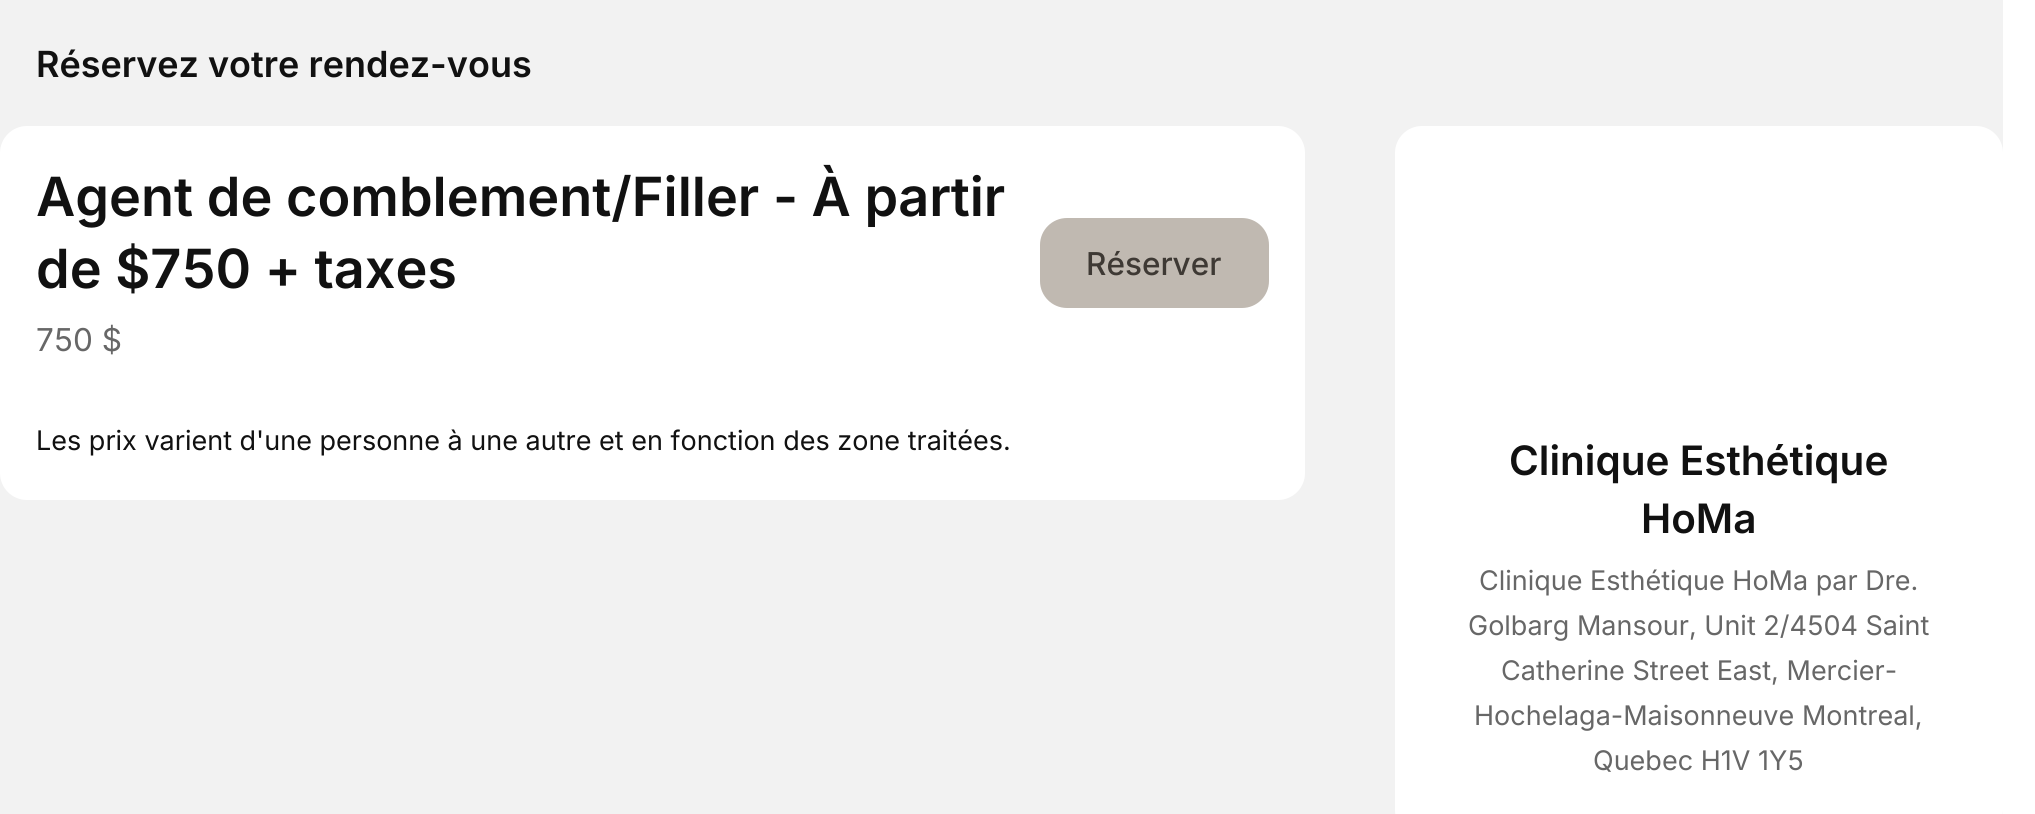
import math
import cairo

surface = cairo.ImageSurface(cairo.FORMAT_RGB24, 2035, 814)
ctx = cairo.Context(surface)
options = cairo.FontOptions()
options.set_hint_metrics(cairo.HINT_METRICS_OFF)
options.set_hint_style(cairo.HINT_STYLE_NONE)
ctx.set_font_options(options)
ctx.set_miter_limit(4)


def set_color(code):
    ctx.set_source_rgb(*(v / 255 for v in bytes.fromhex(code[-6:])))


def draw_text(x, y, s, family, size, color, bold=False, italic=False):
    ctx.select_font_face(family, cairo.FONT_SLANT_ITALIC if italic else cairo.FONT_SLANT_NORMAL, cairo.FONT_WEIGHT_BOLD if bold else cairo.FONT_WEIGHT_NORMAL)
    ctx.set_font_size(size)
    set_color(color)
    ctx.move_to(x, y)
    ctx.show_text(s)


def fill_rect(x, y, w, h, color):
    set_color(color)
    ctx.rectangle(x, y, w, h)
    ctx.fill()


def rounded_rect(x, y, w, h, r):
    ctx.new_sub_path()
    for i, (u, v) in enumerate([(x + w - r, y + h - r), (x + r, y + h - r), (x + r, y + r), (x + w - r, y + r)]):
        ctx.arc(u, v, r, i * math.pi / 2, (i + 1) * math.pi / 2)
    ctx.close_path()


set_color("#ffffff")
ctx.paint()
fill_rect(0, 0, 2003, 814, "#f2f2f2")
draw_text(36, 77, "Réservez votre rendez-vous", "Inter SemiBold", 36, "#111111")
set_color("#ffffff")
rounded_rect(0, 126, 1305, 374, 27)
ctx.fill()
draw_text(36, 216, "Agent de comblement/Filler - À partir", "Inter SemiBold", 54, "#111111")
draw_text(36, 288, "de $750 + taxes", "Inter SemiBold", 54, "#111111")
draw_text(36, 351, "750 $", "Inter", 31.5, "#676767")
set_color("#c0b9b1")
rounded_rect(1040, 218, 229, 90, 27)
ctx.fill()
draw_text(1086, 275, "Réserver", "Inter Medium", 31.5, "#3e3934")
draw_text(36, 450, "Les prix varient d'une personne à une autre et en fonction des zone traitées.", "Inter", 27, "#111111")
set_color("#ffffff")
rounded_rect(1395, 126, 608, 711, 27)
ctx.fill()
draw_text(1509, 475, "Clinique Esthétique", "Inter SemiBold", 40.5, "#111111")
draw_text(1641, 533, "HoMa", "Inter SemiBold", 40.5, "#111111")
draw_text(1479, 590, "Clinique Esthétique HoMa par Dre.", "Inter", 27, "#676767")
draw_text(1468, 635, "Golbarg Mansour, Unit 2/4504 Saint", "Inter", 27, "#676767")
draw_text(1501, 680, "Catherine Street East, Mercier-", "Inter", 27, "#676767")
draw_text(1474, 725, "Hochelaga-Maisonneuve Montreal,", "Inter", 27, "#676767")
draw_text(1593, 770, "Quebec H1V 1Y5", "Inter", 27, "#676767")
surface.write_to_png("output.png")
